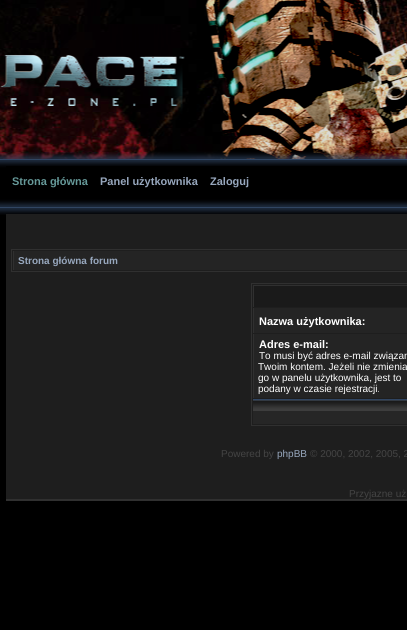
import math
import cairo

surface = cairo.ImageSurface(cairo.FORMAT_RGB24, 407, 630)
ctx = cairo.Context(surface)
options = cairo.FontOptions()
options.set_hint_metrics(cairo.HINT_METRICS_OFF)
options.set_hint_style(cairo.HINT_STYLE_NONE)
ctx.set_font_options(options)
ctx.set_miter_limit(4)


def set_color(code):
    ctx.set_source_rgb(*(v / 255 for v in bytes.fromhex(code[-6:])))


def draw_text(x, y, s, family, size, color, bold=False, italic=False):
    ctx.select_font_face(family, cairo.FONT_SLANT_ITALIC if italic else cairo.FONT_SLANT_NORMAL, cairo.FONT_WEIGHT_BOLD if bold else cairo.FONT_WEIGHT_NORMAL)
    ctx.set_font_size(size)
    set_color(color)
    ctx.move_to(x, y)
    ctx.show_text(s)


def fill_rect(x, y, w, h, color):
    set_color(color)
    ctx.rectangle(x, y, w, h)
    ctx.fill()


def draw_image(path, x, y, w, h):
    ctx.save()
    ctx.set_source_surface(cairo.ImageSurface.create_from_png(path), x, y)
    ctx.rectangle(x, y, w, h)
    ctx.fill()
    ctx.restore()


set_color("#000000")
ctx.paint()
draw_image("assets/img1.png", 0, 0, 407, 215)
fill_rect(6, 499, 401, 2, "#303030")
fill_rect(6, 214, 401, 285, "#1e1e1e")
draw_image("assets/img2.png", 6, 166, 401, 48)
draw_text(12, 185, "Strona główna", "Liberation Sans", 11, "#669999", bold=True)
draw_text(100, 185, "Panel użytkownika", "Liberation Sans", 11, "#97a7bd", bold=True)
draw_text(210, 185, "Zaloguj", "Liberation Sans", 11, "#97a7bd", bold=True)
ctx.rectangle(11.5, 249.5, 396, 22)
set_color("#303030")
ctx.set_line_width(1)
ctx.stroke()
fill_rect(14, 251, 393, 19, "#242424")
fill_rect(13, 251, 1, 19, "#303030")
draw_text(18, 264, "Strona główna forum", "Liberation Sans", 10, "#97a7bd", bold=True)
ctx.rectangle(251.5, 283.5, 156, 142)
set_color("#303030")
ctx.stroke()
fill_rect(254, 286, 153, 21, "#1a1a1a")
fill_rect(253, 285, 154, 1, "#303030")
fill_rect(253, 285, 1, 22, "#303030")
fill_rect(254, 308, 153, 25, "#242424")
fill_rect(253, 308, 1, 25, "#303030")
draw_text(259, 325, "Nazwa użytkownika:", "Liberation Sans", 11, "#ffffff", bold=True)
fill_rect(254, 334, 153, 64, "#242424")
fill_rect(253, 334, 1, 64, "#303030")
draw_text(259, 348, "Adres e-mail:", "Liberation Sans", 11, "#ffffff", bold=True)
draw_text(259, 359, "To musi być adres e-mail związan", "Liberation Sans", 10, "#ffffff")
draw_text(258, 370, "Twoim kontem. Jeżeli nie zmienia", "Liberation Sans", 10, "#ffffff")
draw_text(258, 381, "go w panelu użytkownika, jest to", "Liberation Sans", 10, "#ffffff")
draw_text(258, 392, "podany w czasie rejestracji.", "Liberation Sans", 10, "#ffffff")
draw_image("assets/img3.png", 253, 399, 154, 25)
draw_text(221, 457, "Powered by", "Liberation Sans", 10, "#444444")
draw_text(277, 457, "phpBB", "Liberation Sans", 10, "#97a7bd")
draw_text(310, 457, "© 2000, 2002, 2005, 2", "Liberation Sans", 10, "#444444")
draw_text(349, 497, "Przyjazne uż", "Liberation Sans", 10, "#444444")
surface.write_to_png("output.png")
